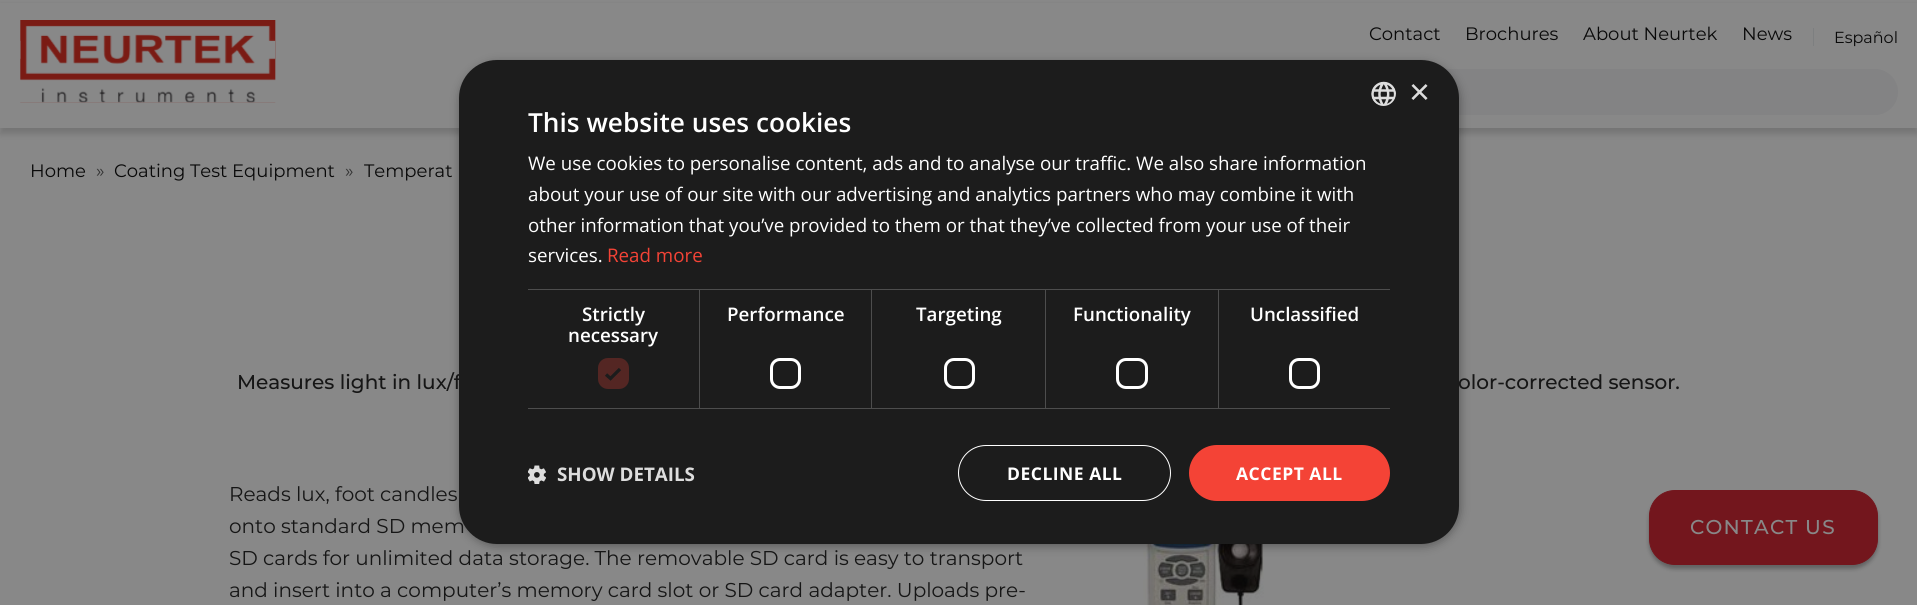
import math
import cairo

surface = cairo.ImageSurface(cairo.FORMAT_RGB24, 1917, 605)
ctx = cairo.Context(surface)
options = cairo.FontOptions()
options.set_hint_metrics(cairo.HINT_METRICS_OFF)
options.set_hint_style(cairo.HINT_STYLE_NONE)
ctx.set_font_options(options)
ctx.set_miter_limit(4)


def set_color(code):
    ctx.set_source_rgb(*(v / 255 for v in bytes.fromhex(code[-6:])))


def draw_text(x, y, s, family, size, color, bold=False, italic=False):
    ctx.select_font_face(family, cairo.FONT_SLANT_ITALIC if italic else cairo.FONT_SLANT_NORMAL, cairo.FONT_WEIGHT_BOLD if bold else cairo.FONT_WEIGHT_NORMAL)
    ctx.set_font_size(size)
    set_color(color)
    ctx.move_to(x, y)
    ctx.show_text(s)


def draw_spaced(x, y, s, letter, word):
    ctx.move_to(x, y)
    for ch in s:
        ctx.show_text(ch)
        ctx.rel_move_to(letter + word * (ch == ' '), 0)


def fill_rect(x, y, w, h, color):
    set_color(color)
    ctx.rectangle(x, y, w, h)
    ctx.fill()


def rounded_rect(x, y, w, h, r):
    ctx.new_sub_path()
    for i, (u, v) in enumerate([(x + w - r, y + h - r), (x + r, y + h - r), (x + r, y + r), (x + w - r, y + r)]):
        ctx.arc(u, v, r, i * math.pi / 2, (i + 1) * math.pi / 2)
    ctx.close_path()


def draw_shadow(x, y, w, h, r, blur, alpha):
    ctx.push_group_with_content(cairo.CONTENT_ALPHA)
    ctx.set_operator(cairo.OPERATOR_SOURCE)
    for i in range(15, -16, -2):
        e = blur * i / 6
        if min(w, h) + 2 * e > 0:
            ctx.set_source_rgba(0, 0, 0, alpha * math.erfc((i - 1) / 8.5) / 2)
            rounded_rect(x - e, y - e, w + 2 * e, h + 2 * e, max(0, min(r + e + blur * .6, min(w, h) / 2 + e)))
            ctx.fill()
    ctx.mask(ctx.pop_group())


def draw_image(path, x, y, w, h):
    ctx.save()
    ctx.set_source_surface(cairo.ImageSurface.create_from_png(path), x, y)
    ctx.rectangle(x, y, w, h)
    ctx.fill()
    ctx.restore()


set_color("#888888")
ctx.paint()
set_color("#090909")
draw_shadow(0, 6, 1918, 128, 0, 3, 0.15)
fill_rect(0, 3, 1917, 125, "#888888")
draw_image("assets/img1.png", 20, 20, 256, 83)
draw_text(1369, 40, "Contact", "Montserrat", 18, "#090909")
draw_text(1465, 40, "Brochures", "Montserrat", 18, "#090909")
draw_text(1583, 40, "About Neurtek", "Montserrat", 18, "#090909")
draw_text(1742, 40, "News", "Montserrat", 18, "#090909")
draw_text(1834, 43, "Español", "Montserrat", 16, "#090909")
fill_rect(1813, 28, 1, 18, "#7d7f80")
set_color("#838384")
rounded_rect(1273, 69, 625, 46, 23)
ctx.fill()
draw_text(30, 177, "Home", "Montserrat", 18, "#090909")
draw_text(96, 177, "»", "Montserrat", 18, "#323232")
draw_text(114, 177, "Coating Test Equipment", "Montserrat", 18, "#090909")
draw_text(345, 177, "»", "Montserrat", 18, "#323232")
draw_text(364, 177, "Temperat", "Montserrat", 18, "#090909")
draw_image("assets/img4.png", 1143, 544, 121, 61)
set_color("#000000")
draw_shadow(460, 63, 1000, 483, 38, 5, 0.35)
draw_text(237, 389, "Measures light in lux/f", "Montserrat Medium", 20, "#161616")
draw_text(229, 533, "onto standard SD mem", "Montserrat", 20, "#161616")
set_color("#1c1c1c")
rounded_rect(459, 60, 1000, 484, 38)
ctx.fill()
draw_image("assets/img2.png", 1371, 81, 25, 25)
draw_text(1409, 104, "×", "Liberation Sans", 36, "#dddddd")
draw_text(528, 132, "This website uses cookies", "Open Sans SemiBold", 26.25, "#ffffff")
draw_text(528, 170, "We use cookies to personalise content, ads and to analyse our traffic. We also share information", "Open Sans", 18.75, "#ffffff")
draw_text(528, 201, "about your use of our site with our advertising and analytics partners who may combine it with", "Open Sans", 18.75, "#ffffff")
draw_text(528, 232, "other information that you’ve provided to them or that they’ve collected from your use of their", "Open Sans", 18.75, "#ffffff")
draw_text(528, 262, "services.", "Open Sans", 18.75, "#ffffff")
draw_text(607, 262, "Read more", "Open Sans", 18.75, "#f44336")
fill_rect(528, 289, 862, 1, "#4d4d4d")
fill_rect(699, 289, 1, 120, "#4d4d4d")
fill_rect(528, 408, 172, 1, "#4d4d4d")
draw_text(582, 321, "Strictly", "Open Sans SemiBold", 18.75, "#ffffff")
draw_text(568, 342, "necessary", "Open Sans SemiBold", 18.75, "#ffffff")
set_color("#542623")
rounded_rect(598, 358, 31, 31, 10)
ctx.fill()
ctx.new_path()
ctx.move_to(606, 374.5)
ctx.line_to(610.5, 378.5)
ctx.line_to(620, 369)
set_color("#1c1c1c")
ctx.set_line_width(3.3)
ctx.stroke()
fill_rect(871, 289, 1, 120, "#4d4d4d")
fill_rect(700, 408, 173, 1, "#4d4d4d")
draw_text(727, 321, "Performance", "Open Sans SemiBold", 18.75, "#ffffff")
rounded_rect(771.5, 359.5, 28, 28, 8.5)
ctx.set_line_width(3)
ctx.stroke()
fill_rect(1045, 289, 1, 120, "#4d4d4d")
fill_rect(873, 408, 173, 1, "#4d4d4d")
draw_text(916, 321, "Targeting", "Open Sans SemiBold", 18.75, "#ffffff")
rounded_rect(945.5, 359.5, 28, 28, 8.5)
ctx.stroke()
fill_rect(1218, 289, 1, 120, "#4d4d4d")
fill_rect(1046, 408, 344, 1, "#4d4d4d")
draw_text(1073, 321, "Functionality", "Open Sans SemiBold", 18.75, "#ffffff")
rounded_rect(1117.5, 359.5, 29, 28, 8.5)
ctx.stroke()
draw_text(1250, 321, "Unclassified", "Open Sans SemiBold", 18.75, "#ffffff")
rounded_rect(1290.5, 359.5, 28, 28, 8.5)
ctx.stroke()
draw_image("assets/img3.png", 528, 465, 18, 19)
draw_text(557, 481, "SHOW DETAILS", "Open Sans", 18.75, "#dddddd", bold=True)
rounded_rect(958.5, 445.5, 212, 55, 27.5)
set_color("#ffffff")
ctx.set_line_width(1)
ctx.stroke()
ctx.set_font_size(17.5)
draw_spaced(1007, 480, "DECLINE ALL", 0.5, 0)
set_color("#f44336")
rounded_rect(1189, 445, 201, 56, 28)
ctx.fill()
set_color("#ffffff")
draw_spaced(1236, 480, "ACCEPT ALL", 0.5, 0)
draw_text(1458, 389, "olor-corrected sensor.", "Montserrat Medium", 20, "#161616")
draw_text(229, 501, "Reads lux, foot candles", "Montserrat", 20, "#161616")
draw_text(229, 565, "SD cards for unlimited data storage. The removable SD card is easy to transport", "Montserrat", 20, "#161616")
draw_text(229, 597, "and insert into a computer’s memory card slot or SD card adapter. Uploads pre-", "Montserrat", 20, "#161616")
set_color("#090909")
draw_shadow(1649, 494, 229, 75, 26, 2, 0.3)
set_color("#73161d")
rounded_rect(1649.5, 490.5, 228, 74, 25.5)
ctx.fill_preserve()
ctx.stroke()
ctx.select_font_face("Montserrat Medium")
set_color("#888888")
draw_spaced(1690, 534, "CONTACT US", 1.25, 0)
surface.write_to_png("output.png")
